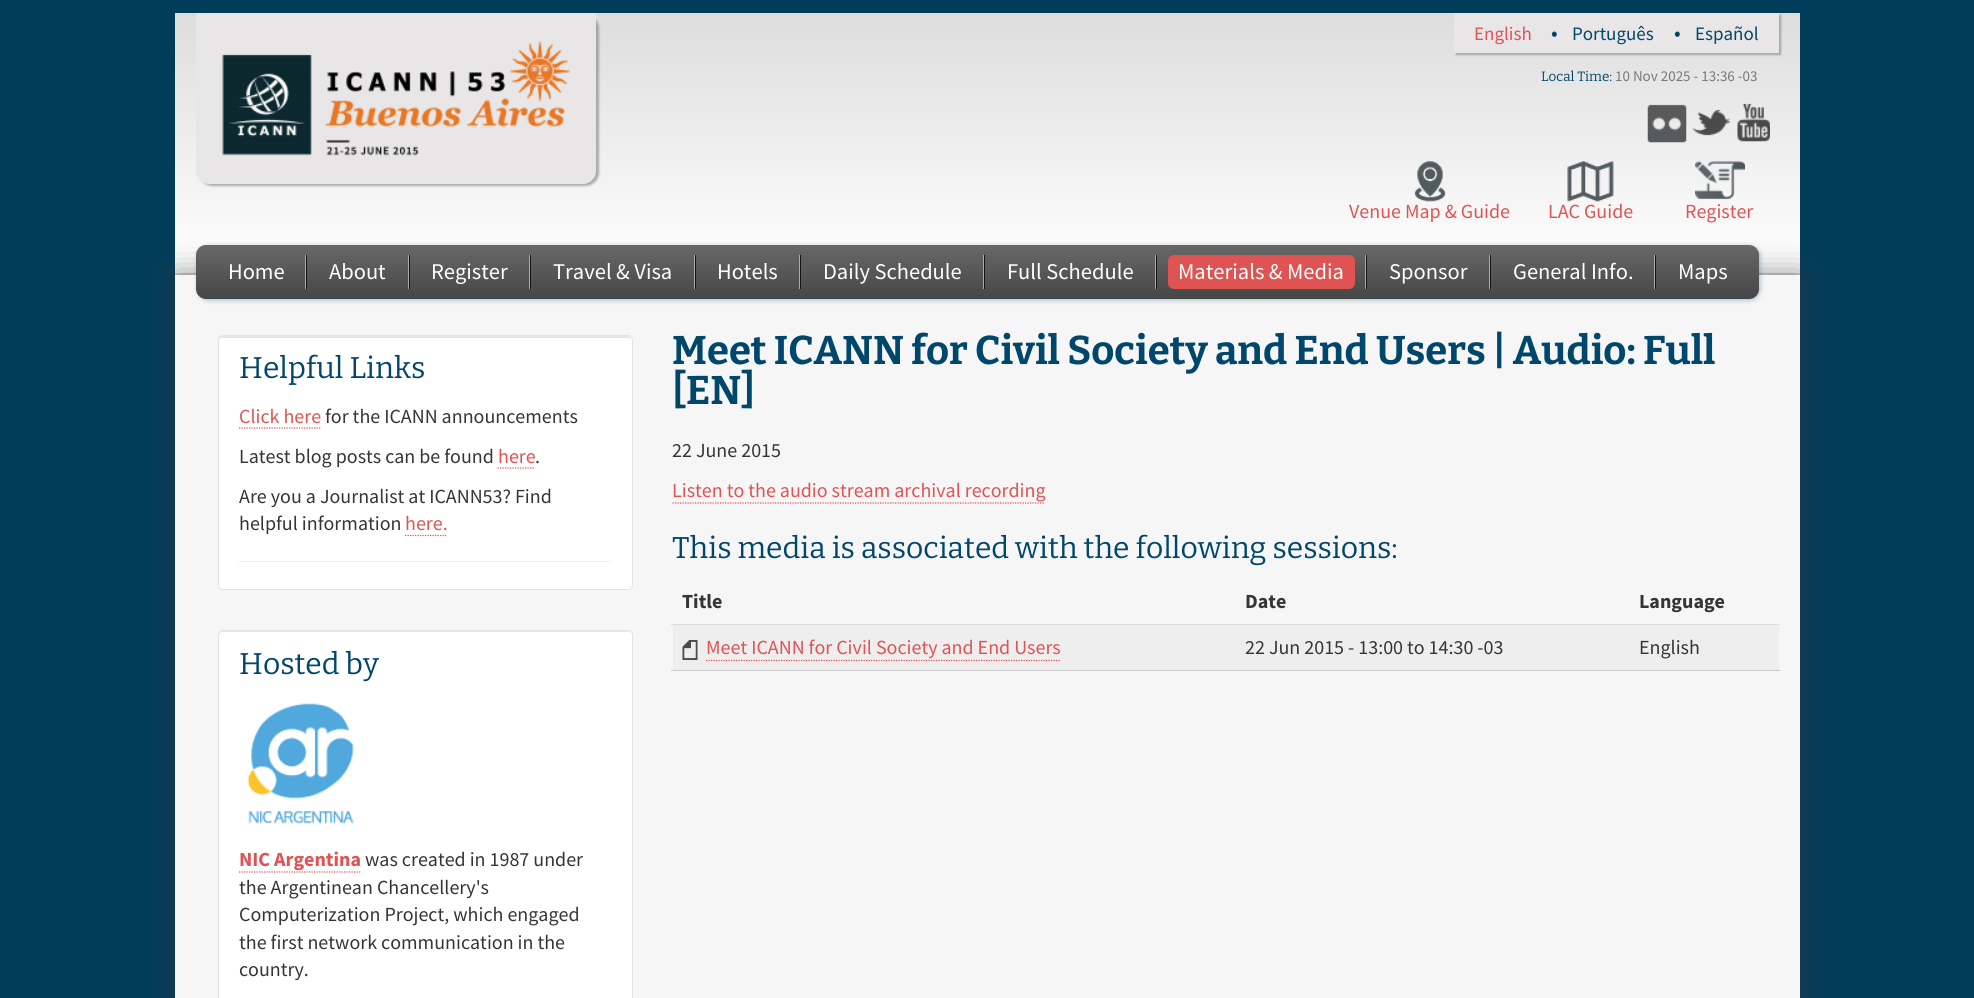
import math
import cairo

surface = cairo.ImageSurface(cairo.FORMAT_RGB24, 1974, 998)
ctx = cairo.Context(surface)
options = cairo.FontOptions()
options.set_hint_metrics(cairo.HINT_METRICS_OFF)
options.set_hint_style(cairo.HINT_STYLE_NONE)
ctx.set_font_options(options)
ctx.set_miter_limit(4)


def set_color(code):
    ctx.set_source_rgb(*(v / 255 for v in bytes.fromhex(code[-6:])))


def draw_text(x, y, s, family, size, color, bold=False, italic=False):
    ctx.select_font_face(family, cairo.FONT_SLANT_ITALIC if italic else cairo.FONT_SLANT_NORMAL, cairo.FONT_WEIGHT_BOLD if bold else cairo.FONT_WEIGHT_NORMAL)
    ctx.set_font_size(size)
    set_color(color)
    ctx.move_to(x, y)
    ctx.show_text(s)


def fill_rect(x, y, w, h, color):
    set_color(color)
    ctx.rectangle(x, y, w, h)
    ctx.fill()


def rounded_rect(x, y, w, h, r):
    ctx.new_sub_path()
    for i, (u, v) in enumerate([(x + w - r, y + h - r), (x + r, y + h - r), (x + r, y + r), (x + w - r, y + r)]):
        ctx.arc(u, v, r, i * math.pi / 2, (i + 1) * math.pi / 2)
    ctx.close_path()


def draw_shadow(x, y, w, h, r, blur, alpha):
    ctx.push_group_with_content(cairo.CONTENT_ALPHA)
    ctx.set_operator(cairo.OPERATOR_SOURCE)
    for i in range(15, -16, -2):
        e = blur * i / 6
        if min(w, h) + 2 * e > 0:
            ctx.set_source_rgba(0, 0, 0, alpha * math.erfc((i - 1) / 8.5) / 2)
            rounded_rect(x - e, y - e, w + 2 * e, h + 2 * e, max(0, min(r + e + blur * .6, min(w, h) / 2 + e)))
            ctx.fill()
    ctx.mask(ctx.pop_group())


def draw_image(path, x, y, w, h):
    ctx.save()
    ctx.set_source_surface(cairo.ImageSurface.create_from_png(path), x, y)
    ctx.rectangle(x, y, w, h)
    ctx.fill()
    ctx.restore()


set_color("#023c5b")
ctx.paint()
gradient = cairo.LinearGradient(988, 12, 988, 273)
gradient.add_color_stop_rgba(0, 0.867, 0.867, 0.867, 1)
gradient.add_color_stop_rgba(1, 1, 1, 1, 1)
ctx.set_source(gradient)
ctx.rectangle(175, 13, 1625, 260)
ctx.fill()
fill_rect(175, 273, 1625, 2, "#dddddd")
set_color("#686868")
draw_shadow(199, 15, 400, 171, 13, 1, 0.5)
set_color("#e8e6e6")
ctx.new_path()
ctx.move_to(196, 13)
ctx.line_to(596, 13)
ctx.line_to(596, 171)
ctx.curve_to(596, 178, 590, 184, 583, 184)
ctx.line_to(209, 184)
ctx.curve_to(202, 184, 196, 178, 196, 171)
ctx.close_path()
ctx.fill()
draw_image("assets/img1.png", 222, 41, 349, 115)
set_color("#686868")
draw_shadow(1456, 15, 325, 40, 0, 1, 0.5)
fill_rect(1454, 13, 325, 40, "#e8e6e6")
draw_text(1474, 40, "English", "Source Sans Pro", 19, "#df5353")
draw_text(1551, 40, "•", "Source Sans Pro", 22, "#00476b")
draw_text(1572, 40, "Português", "Source Sans Pro", 19, "#00476b")
draw_text(1674, 40, "•", "Source Sans Pro", 22, "#00476b")
draw_text(1695, 40, "Español", "Source Sans Pro", 19, "#00476b")
draw_text(1541, 81, "Local Time:", "Bitter", 13.5, "#00476b")
draw_text(1615, 81, "10 Nov 2025 - 13:36 -03", "Source Sans Pro", 15, "#797979")
draw_image("assets/img2.png", 1647, 104, 40, 39)
draw_image("assets/img3.png", 1692, 110, 38, 26)
draw_image("assets/img4.png", 1737, 103, 33, 39)
draw_image("assets/img5.png", 1414, 161, 32, 41)
draw_image("assets/img6.png", 1414, 161, 32, 41)
draw_text(1349, 218, "Venue Map & Guide", "Source Sans Pro", 20, "#df5353")
draw_image("assets/img7.png", 1567, 161, 47, 41)
draw_image("assets/img8.png", 1567, 161, 47, 41)
draw_text(1548, 218, "LAC Guide", "Source Sans Pro", 20, "#df5353")
draw_image("assets/img9.png", 1695, 161, 50, 39)
draw_text(1685, 218, "Register", "Source Sans Pro", 20, "#df5353")
set_color("#353535")
draw_shadow(175, 275, 1625, 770, 0, 15.5, 0.6)
fill_rect(175, 275, 1625, 723, "#f6f6f6")
set_color("#00476b")
draw_shadow(198, 246, 1562, 54, 10, 2.5, 0.35)
gradient = cairo.LinearGradient(978, 245, 978, 299)
gradient.add_color_stop_rgba(0, 0.408, 0.408, 0.408, 1)
gradient.add_color_stop_rgba(1, 0.275, 0.275, 0.275, 1)
ctx.set_source(gradient)
rounded_rect(196, 245, 1563, 54, 10)
ctx.fill()
fill_rect(305, 255, 1, 34, "#acacac")
draw_text(228, 279, "Home", "Source Sans Pro", 22.5, "#ffffff")
fill_rect(408, 255, 1, 34, "#acacac")
fill_rect(306, 255, 1, 34, "#131313")
draw_text(329, 279, "About", "Source Sans Pro", 22.5, "#ffffff")
fill_rect(529, 255, 1, 34, "#acacac")
fill_rect(409, 255, 1, 34, "#131313")
draw_text(431, 279, "Register", "Source Sans Pro", 22.5, "#ffffff")
fill_rect(694, 255, 1, 34, "#acacac")
fill_rect(530, 255, 1, 34, "#131313")
draw_text(553, 279, "Travel & Visa", "Source Sans Pro", 22.5, "#ffffff")
fill_rect(799, 255, 1, 34, "#acacac")
fill_rect(695, 255, 1, 34, "#131313")
draw_text(717, 279, "Hotels", "Source Sans Pro", 22.5, "#ffffff")
fill_rect(983, 255, 1, 34, "#acacac")
fill_rect(800, 255, 1, 34, "#131313")
draw_text(823, 279, "Daily Schedule", "Source Sans Pro", 22.5, "#ffffff")
fill_rect(1155, 255, 1, 34, "#acacac")
fill_rect(984, 255, 1, 34, "#131313")
draw_text(1007, 279, "Full Schedule", "Source Sans Pro", 22.5, "#ffffff")
fill_rect(1365, 255, 1, 34, "#acacac")
fill_rect(1156, 255, 1, 34, "#131313")
set_color("#df5353")
rounded_rect(1168, 255, 187, 34, 6)
ctx.fill()
draw_text(1178, 279, "Materials & Media", "Source Sans Pro", 22.5, "#ffffff")
fill_rect(1489, 255, 1, 34, "#acacac")
fill_rect(1366, 255, 1, 34, "#131313")
draw_text(1389, 279, "Sponsor", "Source Sans Pro", 22.5, "#ffffff")
fill_rect(1654, 255, 1, 34, "#acacac")
fill_rect(1490, 255, 1, 34, "#131313")
draw_text(1513, 279, "General Info.", "Source Sans Pro", 22.5, "#ffffff")
fill_rect(1655, 255, 1, 34, "#131313")
draw_text(1678, 279, "Maps", "Source Sans Pro", 22.5, "#ffffff")
rounded_rect(218, 335, 415, 255, 5)
ctx.fill()
set_color("#e6e6e6")
ctx.new_path()
ctx.move_to(222, 338)
ctx.line_to(628, 338)
ctx.curve_to(630, 338, 631, 339, 631, 341)
ctx.line_to(631, 340)
ctx.curve_to(631, 338, 629, 336, 627, 336)
ctx.line_to(223, 336)
ctx.curve_to(221, 336, 219, 338, 219, 340)
ctx.line_to(219, 341)
ctx.curve_to(219, 339, 220, 338, 222, 338)
ctx.close_path()
ctx.fill()
rounded_rect(218.5, 335.5, 414, 254, 4.5)
set_color("#e3e3e3")
ctx.set_line_width(1)
ctx.stroke()
draw_text(239, 378, "Helpful Links", "Bitter", 30, "#00476b")
draw_text(239, 423, "Click here", "Source Sans Pro", 20, "#df5353")
ctx.new_path()
ctx.move_to(239, 428)
ctx.line_to(321, 428)
ctx.set_line_width(1.2)
ctx.set_dash([1.25, 1.25])
ctx.stroke()
draw_text(325, 423, "for the ICANN announcements", "Source Sans Pro", 20, "#353535")
draw_text(239, 463, "Latest blog posts can be found", "Source Sans Pro", 20, "#353535")
draw_text(498, 463, "here", "Source Sans Pro", 20, "#df5353")
ctx.new_path()
ctx.move_to(497.5, 468)
ctx.line_to(535, 468)
ctx.stroke()
draw_text(535, 463, ".", "Source Sans Pro", 20, "#353535")
draw_text(239, 503, "Are you a Journalist at ICANN53? Find", "Source Sans Pro", 20, "#353535")
draw_text(239, 530, "helpful information", "Source Sans Pro", 20, "#353535")
draw_text(405, 530, "here.", "Source Sans Pro", 20, "#df5353")
ctx.new_path()
ctx.move_to(405, 535.5)
ctx.line_to(447.5, 535.5)
ctx.stroke()
fill_rect(239, 561, 372, 1, "#eeeeee")
set_color("#ffffff")
rounded_rect(218, 630, 415, 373, 5)
ctx.fill()
set_color("#e6e6e6")
ctx.new_path()
ctx.move_to(222, 632)
ctx.line_to(628, 632)
ctx.curve_to(630, 632, 631, 634, 631, 636)
ctx.line_to(631, 635)
ctx.curve_to(631, 633, 629, 631, 627, 631)
ctx.line_to(223, 631)
ctx.curve_to(221, 631, 219, 633, 219, 635)
ctx.line_to(219, 636)
ctx.curve_to(219, 634, 220, 632, 222, 632)
ctx.close_path()
ctx.fill()
rounded_rect(218.5, 630.5, 414, 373, 4.5)
set_color("#e3e3e3")
ctx.set_line_width(1)
ctx.set_dash([])
ctx.stroke()
draw_text(239, 674, "Hosted by", "Bitter", 30, "#00476b")
draw_image("assets/img10.png", 247, 703, 107, 121)
draw_text(239, 866, "NIC Argentina", "Source Sans Pro", 20, "#df5353", bold=True)
ctx.new_path()
ctx.move_to(239, 872)
ctx.line_to(361, 872)
ctx.set_line_width(1.2)
ctx.set_dash([1.25, 1.25])
ctx.stroke()
draw_text(365, 866, "was created in 1987 under", "Source Sans Pro", 20, "#353535")
draw_text(239, 894, "the Argentinean Chancellery's", "Source Sans Pro", 20, "#353535")
draw_text(239, 921, "Computerization Project, which engaged", "Source Sans Pro", 20, "#353535")
draw_text(239, 949, "the first network communication in the", "Source Sans Pro", 20, "#353535")
draw_text(239, 976, "country.", "Source Sans Pro", 20, "#353535")
draw_text(672, 364, "Meet ICANN for Civil Society and End Users | Audio: Full", "Bitter", 40, "#00476b", bold=True)
draw_text(672, 404, "[EN]", "Bitter", 40, "#00476b", bold=True)
draw_text(672, 457, "22 June 2015", "Source Sans Pro", 20, "#353535")
draw_text(672, 497, "Listen to the audio stream archival recording", "Source Sans Pro", 20, "#df5353")
ctx.new_path()
ctx.move_to(672.5, 503)
ctx.line_to(1045, 503)
ctx.stroke()
draw_text(672, 558, "This media is associated with the following sessions:", "Bitter", 30, "#00476b")
draw_text(682, 608, "Title", "Source Sans Pro", 20, "#353535", bold=True)
draw_text(1245, 608, "Date", "Source Sans Pro", 20, "#353535", bold=True)
draw_text(1639, 608, "Language", "Source Sans Pro", 20, "#353535", bold=True)
fill_rect(673, 625, 1106, 45, "#eeeeee")
fill_rect(671, 670, 1109, 1, "#cccccc")
draw_image("assets/img11.png", 682, 640, 16, 20)
draw_text(706, 654, "Meet ICANN for Civil Society and End Users", "Source Sans Pro", 20, "#df5353")
ctx.new_path()
ctx.move_to(706, 660.5)
ctx.line_to(1060, 660.5)
ctx.stroke()
draw_text(1245, 654, "22 Jun 2015 - 13:00 to 14:30 -03", "Source Sans Pro", 20, "#353535")
fill_rect(671, 624, 1109, 1, "#dddddd")
draw_text(1639, 654, "English", "Source Sans Pro", 20, "#353535")
surface.write_to_png("output.png")
